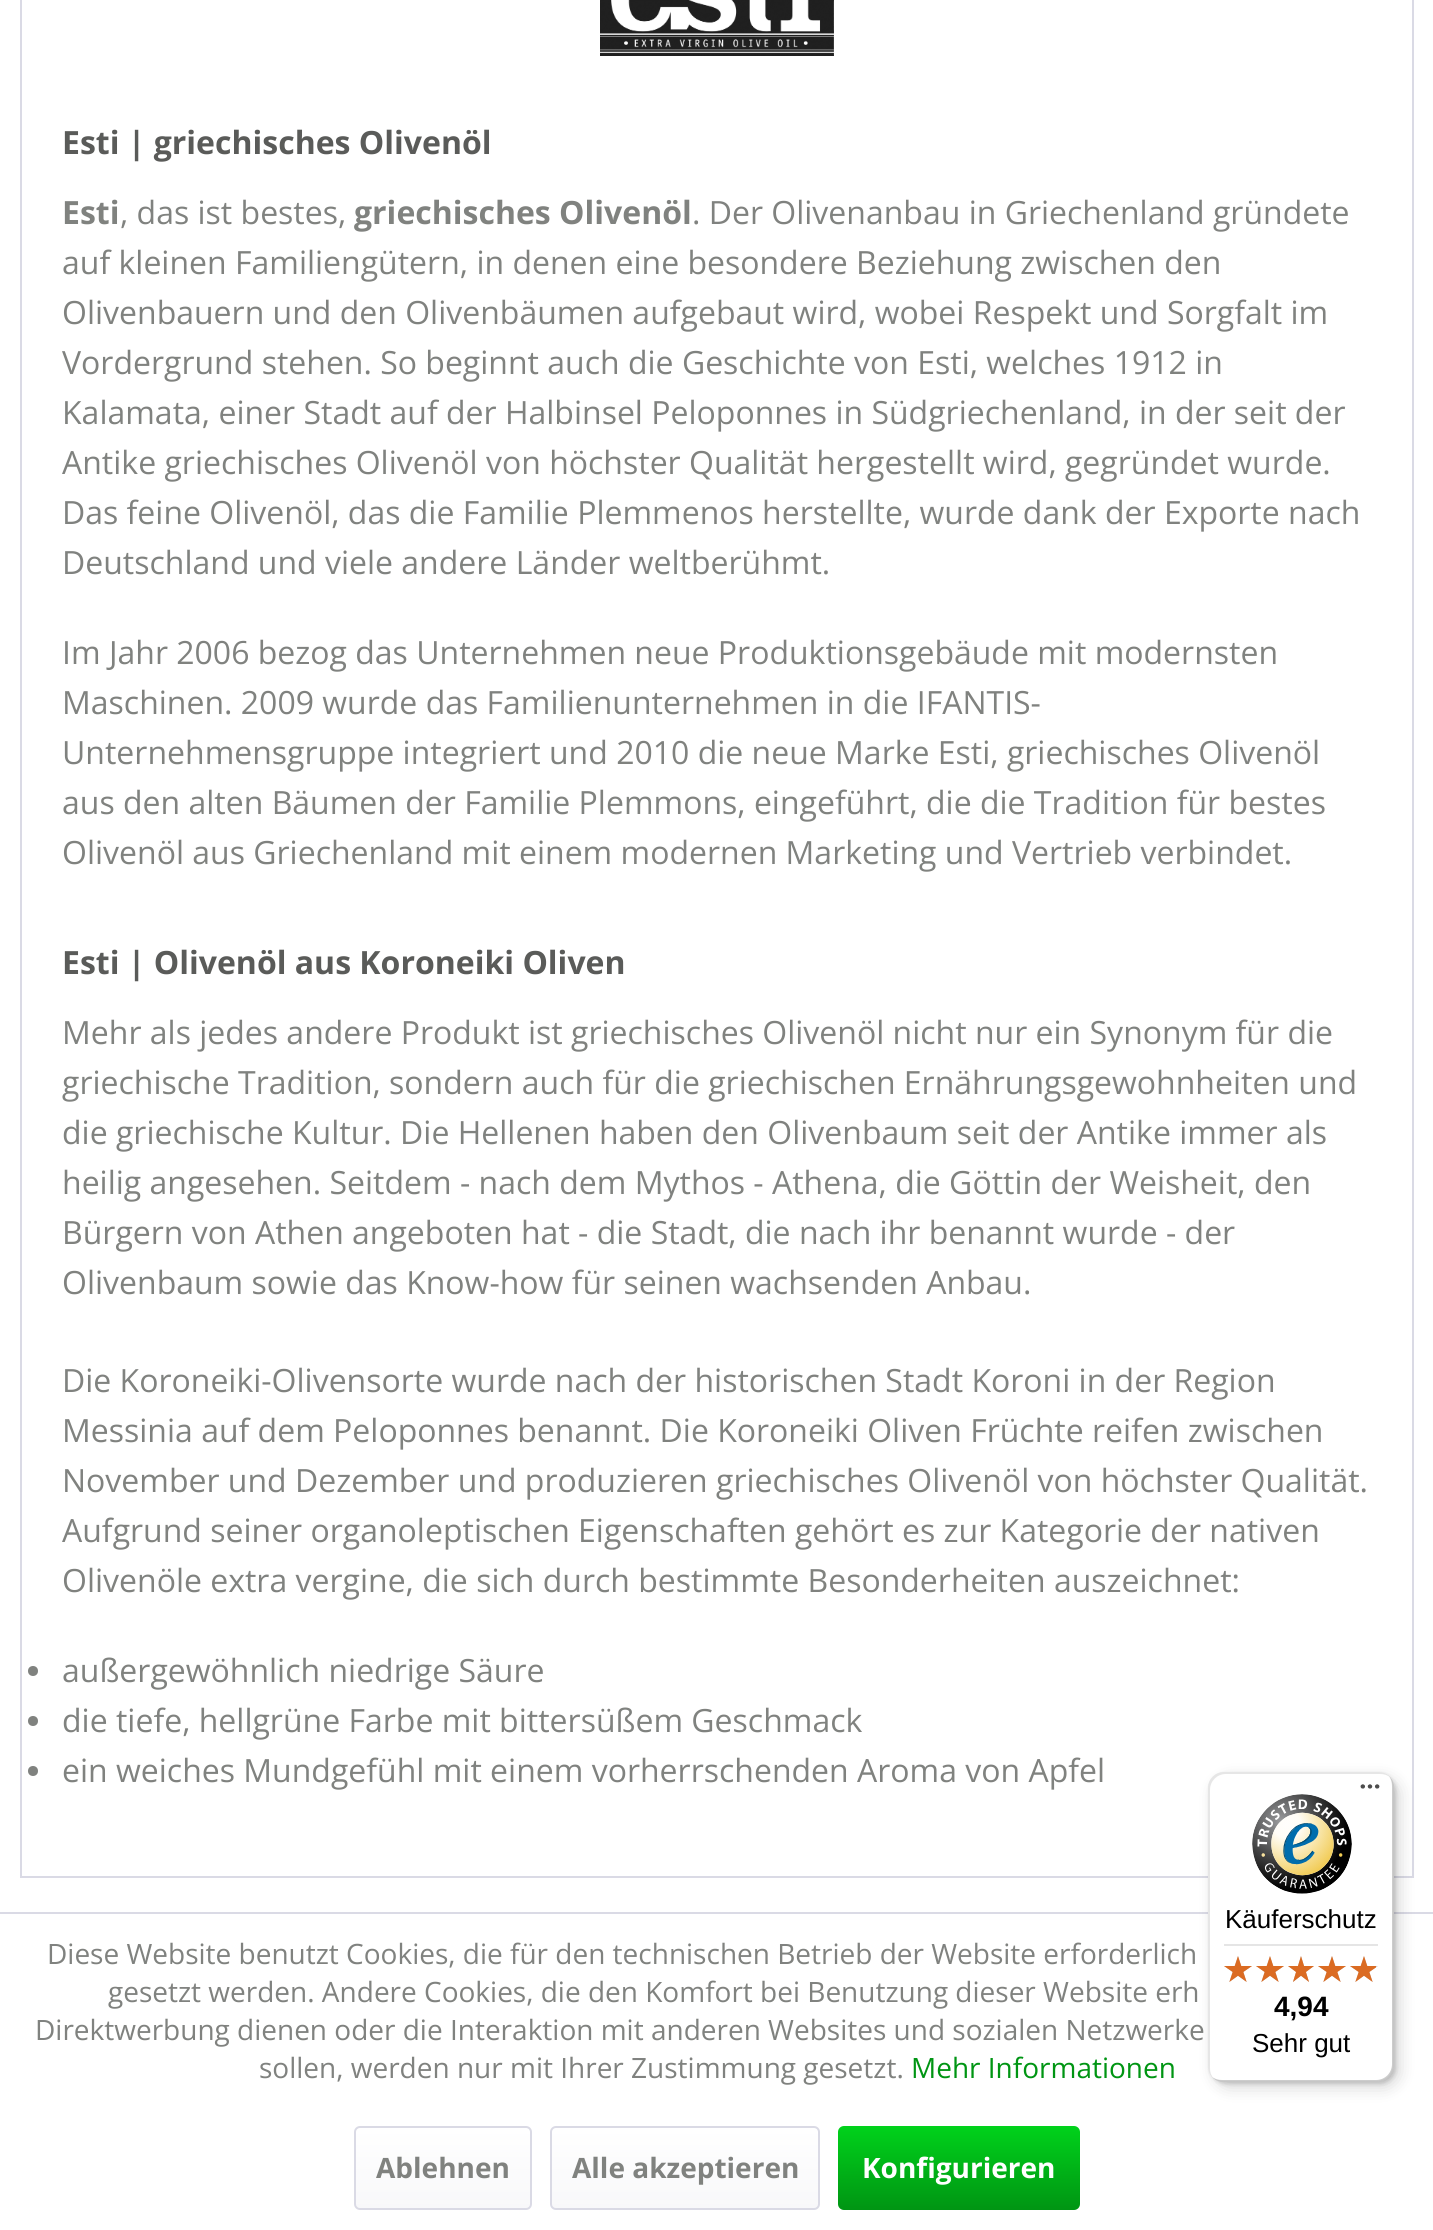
import math
import cairo

surface = cairo.ImageSurface(cairo.FORMAT_RGB24, 1433, 2230)
ctx = cairo.Context(surface)
options = cairo.FontOptions()
options.set_hint_metrics(cairo.HINT_METRICS_OFF)
options.set_hint_style(cairo.HINT_STYLE_NONE)
ctx.set_font_options(options)
ctx.set_miter_limit(4)


def set_color(code):
    ctx.set_source_rgb(*(v / 255 for v in bytes.fromhex(code[-6:])))


def draw_text(x, y, s, family, size, color, bold=False, italic=False):
    ctx.select_font_face(family, cairo.FONT_SLANT_ITALIC if italic else cairo.FONT_SLANT_NORMAL, cairo.FONT_WEIGHT_BOLD if bold else cairo.FONT_WEIGHT_NORMAL)
    ctx.set_font_size(size)
    set_color(color)
    ctx.move_to(x, y)
    ctx.show_text(s)


def fill_rect(x, y, w, h, color):
    set_color(color)
    ctx.rectangle(x, y, w, h)
    ctx.fill()


def rounded_rect(x, y, w, h, r):
    ctx.new_sub_path()
    for i, (u, v) in enumerate([(x + w - r, y + h - r), (x + r, y + h - r), (x + r, y + r), (x + w - r, y + r)]):
        ctx.arc(u, v, r, i * math.pi / 2, (i + 1) * math.pi / 2)
    ctx.close_path()


def draw_shadow(x, y, w, h, r, blur, alpha):
    ctx.push_group_with_content(cairo.CONTENT_ALPHA)
    ctx.set_operator(cairo.OPERATOR_SOURCE)
    for i in range(15, -16, -2):
        e = blur * i / 6
        if min(w, h) + 2 * e > 0:
            ctx.set_source_rgba(0, 0, 0, alpha * math.erfc((i - 1) / 8.5) / 2)
            rounded_rect(x - e, y - e, w + 2 * e, h + 2 * e, max(0, min(r + e + blur * .6, min(w, h) / 2 + e)))
            ctx.fill()
    ctx.mask(ctx.pop_group())


def draw_image(path, x, y, w, h):
    ctx.save()
    ctx.set_source_surface(cairo.ImageSurface.create_from_png(path), x, y)
    ctx.rectangle(x, y, w, h)
    ctx.fill()
    ctx.restore()


set_color("#ffffff")
ctx.paint()
ctx.rectangle(21, -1, 1392, 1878)
set_color("#dadae5")
ctx.stroke()
draw_image("assets/img1.png", 600, 0, 234, 56)
draw_text(62, 154, "Esti | griechisches Olivenöl", "Open Sans", 32, "#5a5b59", bold=True)
draw_text(62, 224, "Esti", "Open Sans", 32, "#80827f", bold=True)
draw_text(120, 224, ", das ist bestes,", "Open Sans", 32, "#80827f")
draw_text(354, 224, "griechisches Olivenöl", "Open Sans", 32, "#80827f", bold=True)
draw_text(692, 224, ". Der Olivenanbau in Griechenland gründete", "Open Sans", 32, "#80827f")
draw_text(62, 274, "auf kleinen Familiengütern, in denen eine besondere Beziehung zwischen den", "Open Sans", 32, "#80827f")
draw_text(62, 324, "Olivenbauern und den Olivenbäumen aufgebaut wird, wobei Respekt und Sorgfalt im", "Open Sans", 32, "#80827f")
draw_text(62, 374, "Vordergrund stehen. So beginnt auch die Geschichte von Esti, welches 1912 in", "Open Sans", 32, "#80827f")
draw_text(62, 424, "Kalamata, einer Stadt auf der Halbinsel Peloponnes in Südgriechenland, in der seit der", "Open Sans", 32, "#80827f")
draw_text(62, 474, "Antike griechisches Olivenöl von höchster Qualität hergestellt wird, gegründet wurde.", "Open Sans", 32, "#80827f")
draw_text(62, 524, "Das feine Olivenöl, das die Familie Plemmenos herstellte, wurde dank der Exporte nach", "Open Sans", 32, "#80827f")
draw_text(62, 574, "Deutschland und viele andere Länder weltberühmt.", "Open Sans", 32, "#80827f")
draw_text(62, 664, "Im Jahr 2006 bezog das Unternehmen neue Produktionsgebäude mit modernsten", "Open Sans", 32, "#80827f")
draw_text(62, 714, "Maschinen. 2009 wurde das Familienunternehmen in die IFANTIS-", "Open Sans", 32, "#80827f")
draw_text(62, 764, "Unternehmensgruppe integriert und 2010 die neue Marke Esti, griechisches Olivenöl", "Open Sans", 32, "#80827f")
draw_text(62, 814, "aus den alten Bäumen der Familie Plemmons, eingeführt, die die Tradition für bestes", "Open Sans", 32, "#80827f")
draw_text(62, 864, "Olivenöl aus Griechenland mit einem modernen Marketing und Vertrieb verbindet.", "Open Sans", 32, "#80827f")
draw_text(62, 974, "Esti | Olivenöl aus Koroneiki Oliven", "Open Sans", 32, "#5a5b59", bold=True)
draw_text(62, 1044, "Mehr als jedes andere Produkt ist griechisches Olivenöl nicht nur ein Synonym für die", "Open Sans", 32, "#80827f")
draw_text(62, 1094, "griechische Tradition, sondern auch für die griechischen Ernährungsgewohnheiten und", "Open Sans", 32, "#80827f")
draw_text(62, 1144, "die griechische Kultur. Die Hellenen haben den Olivenbaum seit der Antike immer als", "Open Sans", 32, "#80827f")
draw_text(62, 1194, "heilig angesehen. Seitdem - nach dem Mythos - Athena, die Göttin der Weisheit, den", "Open Sans", 32, "#80827f")
draw_text(62, 1244, "Bürgern von Athen angeboten hat - die Stadt, die nach ihr benannt wurde - der", "Open Sans", 32, "#80827f")
draw_text(62, 1294, "Olivenbaum sowie das Know-how für seinen wachsenden Anbau.", "Open Sans", 32, "#80827f")
draw_text(62, 1392, "Die Koroneiki-Olivensorte wurde nach der historischen Stadt Koroni in der Region", "Open Sans", 32, "#80827f")
draw_text(62, 1442, "Messinia auf dem Peloponnes benannt. Die Koroneiki Oliven Früchte reifen zwischen", "Open Sans", 32, "#80827f")
draw_text(62, 1492, "November und Dezember und produzieren griechisches Olivenöl von höchster Qualität.", "Open Sans", 32, "#80827f")
draw_text(62, 1542, "Aufgrund seiner organoleptischen Eigenschaften gehört es zur Kategorie der nativen", "Open Sans", 32, "#80827f")
draw_text(62, 1592, "Olivenöle extra vergine, die sich durch bestimmte Besonderheiten auszeichnet:", "Open Sans", 32, "#80827f")
ctx.new_path()
ctx.arc(33, 1671, 5, 0, 2 * math.pi)
ctx.fill()
draw_text(62, 1682, "außergewöhnlich niedrige Säure", "Open Sans", 32, "#80827f")
ctx.new_path()
ctx.arc(33, 1721, 5, 0, 2 * math.pi)
ctx.fill()
draw_text(62, 1732, "die tiefe, hellgrüne Farbe mit bittersüßem Geschmack", "Open Sans", 32, "#80827f")
ctx.new_path()
ctx.arc(33, 1771, 5, 0, 2 * math.pi)
ctx.fill()
draw_text(62, 1782, "ein weiches Mundgefühl mit einem vorherrschenden Aroma von Apfel", "Open Sans", 32, "#80827f")
fill_rect(0, 1912, 1433, 2, "#dadae5")
draw_text(47, 1964, "Diese Website benutzt Cookies, die für den technischen Betrieb der Website erforderlich", "Open Sans", 28, "#80827f")
draw_text(108, 2002, "gesetzt werden. Andere Cookies, die den Komfort bei Benutzung dieser Website erh", "Open Sans", 28, "#80827f")
draw_text(35, 2040, "Direktwerbung dienen oder die Interaktion mit anderen Websites und sozialen Netzwerke", "Open Sans", 28, "#80827f")
draw_text(259, 2078, "sollen, werden nur mit Ihrer Zustimmung gesetzt.", "Open Sans", 28, "#80827f")
draw_text(911, 2078, "Mehr Informationen", "Open Sans", 28, "#009513")
gradient = cairo.LinearGradient(443, 2128, 443, 2208)
gradient.add_color_stop_rgba(0, 1, 1, 1, 1)
gradient.add_color_stop_rgba(1, 0.973, 0.973, 0.98, 1)
ctx.set_source(gradient)
rounded_rect(356, 2128, 174, 80, 4)
ctx.fill()
rounded_rect(355, 2127, 176, 82, 5)
set_color("#dadae5")
ctx.stroke()
draw_text(376, 2178, "Ablehnen", "Open Sans", 28, "#80827f", bold=True)
gradient = cairo.LinearGradient(685, 2128, 685, 2208)
gradient.add_color_stop_rgba(0, 1, 1, 1, 1)
gradient.add_color_stop_rgba(1, 0.973, 0.973, 0.98, 1)
ctx.set_source(gradient)
rounded_rect(552, 2128, 266, 80, 4)
ctx.fill()
rounded_rect(551, 2127, 268, 82, 5)
set_color("#dadae5")
ctx.stroke()
draw_text(572, 2178, "Alle akzeptieren", "Open Sans", 28, "#80827f", bold=True)
gradient = cairo.LinearGradient(959, 2126, 959, 2210)
gradient.add_color_stop_rgba(0, 0, 0.824, 0.106, 1)
gradient.add_color_stop_rgba(1, 0, 0.584, 0.075, 1)
ctx.set_source(gradient)
rounded_rect(838, 2126, 242, 84, 6)
ctx.fill()
draw_text(862, 2178, "Konfigurieren", "Open Sans", 28, "#ffffff", bold=True)
set_color("#000000")
draw_shadow(1214, 1778, 186, 310, 16, 8, 0.15)
draw_shadow(1210, 1774, 186, 310, 16, 2, 0.15)
set_color("#ffffff")
rounded_rect(1208, 1772, 186, 310, 16)
ctx.fill()
ctx.set_source_rgba(0, 0, 0, 0.1)
ctx.new_path()
ctx.move_to(1226, 1774)
ctx.line_to(1380, 1774)
ctx.curve_to(1384, 1774, 1387, 1775, 1390, 1777)
ctx.curve_to(1387, 1774, 1383, 1772, 1378, 1772)
ctx.line_to(1224, 1772)
ctx.curve_to(1215, 1772, 1208, 1779, 1208, 1788)
ctx.line_to(1208, 2066)
ctx.curve_to(1208, 2071, 1210, 2075, 1213, 2078)
ctx.curve_to(1211, 2075, 1210, 2072, 1210, 2068)
ctx.line_to(1210, 1790)
ctx.curve_to(1210, 1781, 1217, 1774, 1226, 1774)
ctx.close_path()
ctx.fill()
ctx.set_source_rgba(0, 0, 0, 0.2)
ctx.new_path()
ctx.move_to(1212, 2077)
ctx.curve_to(1215, 2080, 1219, 2082, 1224, 2082)
ctx.line_to(1378, 2082)
ctx.curve_to(1387, 2082, 1394, 2075, 1394, 2066)
ctx.line_to(1394, 1788)
ctx.curve_to(1394, 1783, 1392, 1779, 1389, 1776)
ctx.curve_to(1391, 1779, 1392, 1782, 1392, 1786)
ctx.line_to(1392, 2064)
ctx.curve_to(1392, 2073, 1385, 2080, 1376, 2080)
ctx.line_to(1222, 2080)
ctx.curve_to(1218, 2080, 1215, 2079, 1212, 2077)
ctx.close_path()
ctx.fill()
ctx.set_source_rgba(0.196, 0.196, 0.196, 0.2)
ctx.new_path()
ctx.move_to(1213, 2077)
ctx.curve_to(1216, 2080, 1220, 2082, 1224, 2082)
ctx.line_to(1378, 2082)
ctx.curve_to(1387, 2082, 1394, 2075, 1394, 2066)
ctx.line_to(1394, 1788)
ctx.curve_to(1394, 1784, 1392, 1780, 1389, 1777)
ctx.curve_to(1392, 1780, 1393, 1783, 1393, 1787)
ctx.line_to(1393, 2065)
ctx.curve_to(1393, 2074, 1386, 2081, 1377, 2081)
ctx.line_to(1223, 2081)
ctx.curve_to(1219, 2081, 1216, 2080, 1213, 2077)
ctx.close_path()
ctx.fill()
ctx.set_source_rgba(1, 1, 1, 0.3)
ctx.new_path()
ctx.move_to(1213, 2077)
ctx.curve_to(1216, 2080, 1220, 2082, 1224, 2082)
ctx.line_to(1378, 2082)
ctx.curve_to(1387, 2082, 1394, 2075, 1394, 2066)
ctx.line_to(1394, 1788)
ctx.curve_to(1394, 1784, 1392, 1780, 1389, 1777)
ctx.curve_to(1392, 1780, 1393, 1783, 1393, 1787)
ctx.line_to(1393, 2065)
ctx.curve_to(1393, 2074, 1386, 2081, 1377, 2081)
ctx.line_to(1223, 2081)
ctx.curve_to(1219, 2081, 1216, 2080, 1213, 2077)
ctx.close_path()
ctx.fill()
draw_image("assets/img2.png", 1360, 1784, 20, 5)
draw_image("assets/img3.png", 1252, 1794, 100, 100)
draw_text(1225, 1928, "Käuferschutz", "Liberation Sans", 26, "#000000")
fill_rect(1224, 1944, 154, 2, "#e5e5e5")
draw_image("assets/img4.png", 1224, 1956, 28, 26)
draw_image("assets/img4.png", 1256, 1956, 28, 26)
draw_image("assets/img5.png", 1288, 1956, 26, 26)
draw_image("assets/img4.png", 1318, 1956, 28, 26)
draw_image("assets/img4.png", 1350, 1956, 28, 26)
draw_image("assets/img6.png", 1224, 1956, 28, 26)
draw_image("assets/img6.png", 1256, 1956, 28, 26)
draw_image("assets/img7.png", 1288, 1956, 26, 26)
draw_image("assets/img6.png", 1318, 1956, 28, 26)
draw_image("assets/img8.png", 1350, 1956, 26, 26)
draw_text(1274, 2016, "4,94", "Liberation Sans", 28, "#000000", bold=True)
draw_text(1252, 2052, "Sehr gut", "Liberation Sans", 26, "#000000")
surface.write_to_png("output.png")
